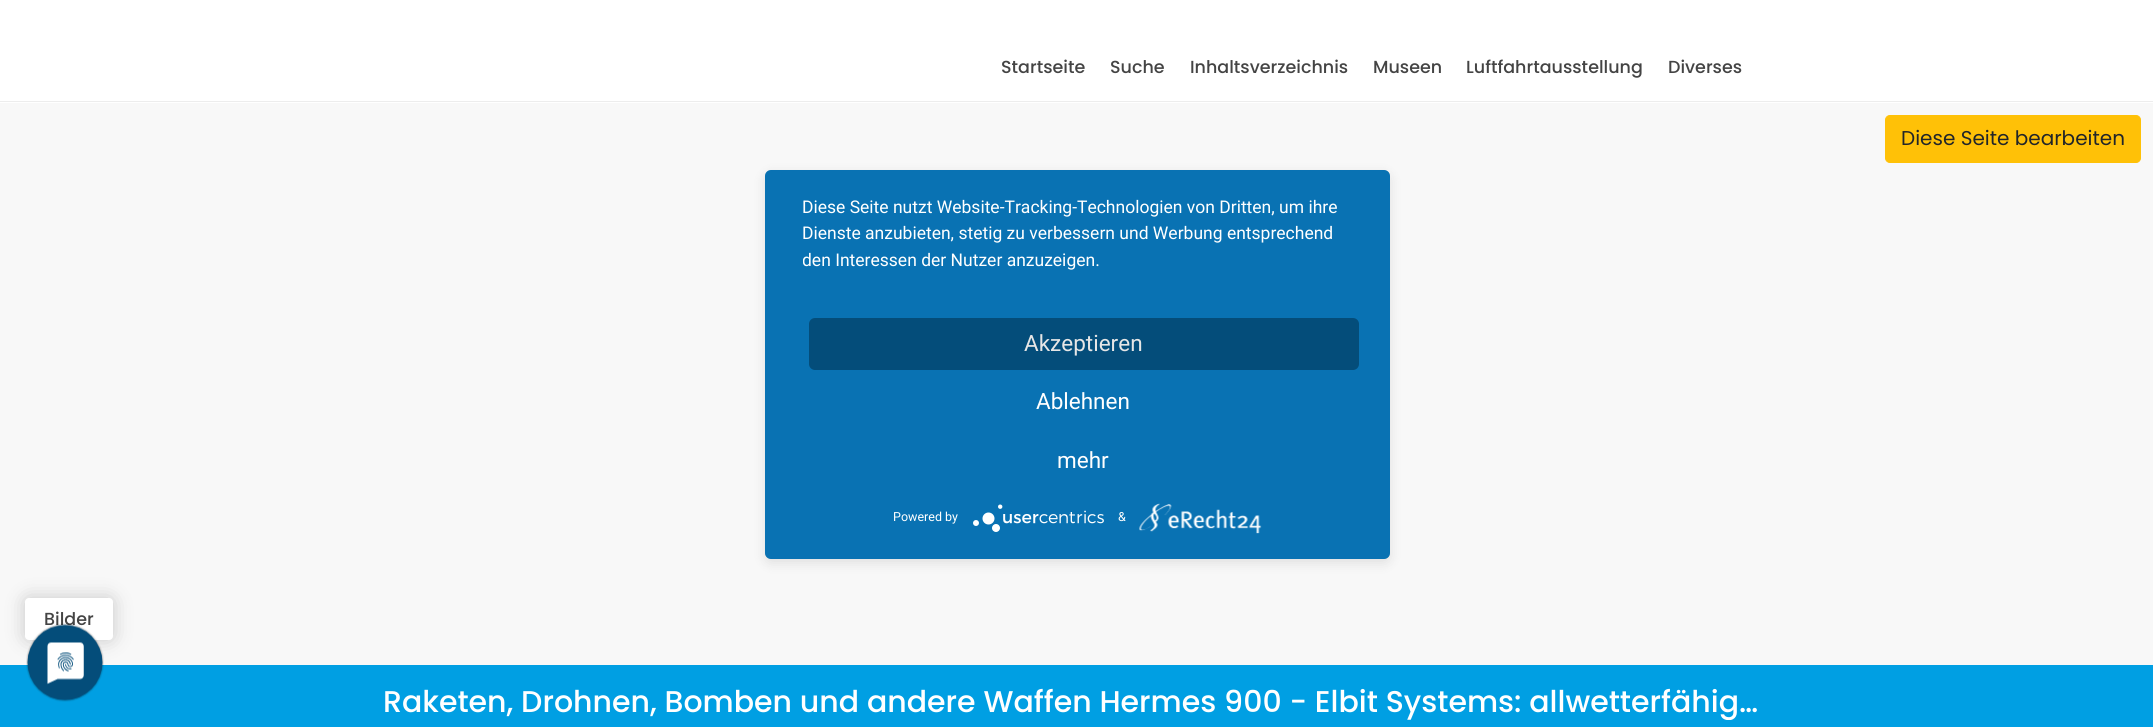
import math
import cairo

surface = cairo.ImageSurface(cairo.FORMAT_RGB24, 2153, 727)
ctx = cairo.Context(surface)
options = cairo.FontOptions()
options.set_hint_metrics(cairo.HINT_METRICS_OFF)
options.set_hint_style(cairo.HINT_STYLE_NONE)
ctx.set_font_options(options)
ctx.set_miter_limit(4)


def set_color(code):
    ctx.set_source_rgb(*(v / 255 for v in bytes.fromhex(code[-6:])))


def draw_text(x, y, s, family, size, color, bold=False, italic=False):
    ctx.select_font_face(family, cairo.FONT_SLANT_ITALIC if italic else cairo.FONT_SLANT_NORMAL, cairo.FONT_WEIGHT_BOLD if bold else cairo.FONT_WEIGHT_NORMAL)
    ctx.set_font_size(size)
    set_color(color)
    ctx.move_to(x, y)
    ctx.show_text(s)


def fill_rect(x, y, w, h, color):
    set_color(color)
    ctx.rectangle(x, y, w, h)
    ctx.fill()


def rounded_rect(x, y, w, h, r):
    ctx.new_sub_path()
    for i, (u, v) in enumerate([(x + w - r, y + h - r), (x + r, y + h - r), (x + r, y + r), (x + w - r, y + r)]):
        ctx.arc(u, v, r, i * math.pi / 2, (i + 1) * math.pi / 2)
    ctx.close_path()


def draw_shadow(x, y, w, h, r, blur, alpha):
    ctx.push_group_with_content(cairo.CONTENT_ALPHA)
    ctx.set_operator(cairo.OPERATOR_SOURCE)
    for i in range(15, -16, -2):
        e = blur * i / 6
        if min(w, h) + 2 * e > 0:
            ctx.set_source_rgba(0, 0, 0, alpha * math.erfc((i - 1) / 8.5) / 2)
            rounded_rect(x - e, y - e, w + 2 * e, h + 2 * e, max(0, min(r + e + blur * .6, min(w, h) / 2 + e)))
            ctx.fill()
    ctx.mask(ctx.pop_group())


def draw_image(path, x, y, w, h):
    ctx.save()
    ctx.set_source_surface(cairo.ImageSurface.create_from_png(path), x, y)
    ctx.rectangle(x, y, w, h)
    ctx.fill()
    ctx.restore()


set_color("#f8f8f8")
ctx.paint()
fill_rect(0, 0, 2153, 103, "#ffffff")
fill_rect(0, 101, 2153, 1, "#ededed")
draw_text(1001, 73, "Startseite", "Poppins Medium", 17.5, "#444444")
draw_text(1110, 73, "Suche", "Poppins Medium", 17.5, "#444444")
draw_text(1190, 73, "Inhaltsverzeichnis", "Poppins Medium", 17.5, "#444444")
draw_text(1373, 73, "Museen", "Poppins Medium", 17.5, "#444444")
draw_text(1466, 73, "Luftfahrtausstellung", "Poppins Medium", 17.5, "#444444")
draw_text(1668, 73, "Diverses", "Poppins Medium", 17.5, "#444444")
set_color("#ffc107")
rounded_rect(1885.5, 115.5, 255, 47, 4.5)
ctx.fill_preserve()
ctx.set_line_width(1)
ctx.stroke()
draw_text(1901, 145, "Diese Seite bearbeiten", "Poppins", 20, "#212529")
fill_rect(0, 665, 2153, 62, "#009fe3")
set_color("#000000")
draw_shadow(25, 598, 88, 42, 4, 9.5, 0.2)
set_color("#ffffff")
rounded_rect(25, 598, 88, 42, 4)
ctx.fill()
draw_text(44, 625, "Bilder", "Poppins Medium", 17.5, "#444444")
ctx.save()
ctx.rectangle(384, 684, 1387, 36)
ctx.clip()
draw_text(383, 712, "Raketen, Drohnen, Bomben und andere Waffen Hermes 900 - Elbit Systems: allwetterfähig…", "Poppins Medium", 30, "#ffffff")
ctx.restore()
set_color("#000000")
draw_shadow(765, 174, 625, 389, 6, 6, 0.1)
ctx.save()
rounded_rect(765, 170, 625, 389, 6)
ctx.clip()
draw_shadow(765, 178, 625, 388, 0, 22.5, 0.3)
ctx.restore()
set_color("#0972b3")
rounded_rect(765, 170, 625, 389, 6)
ctx.fill()
draw_text(802, 213, "Diese Seite nutzt Website-Tracking-Technologien von Dritten, um ihre", "Roboto", 17.5, "#ffffff")
draw_text(802, 239, "Dienste anzubieten, stetig zu verbessern und Werbung entsprechend", "Roboto", 17.5, "#ffffff")
ctx.save()
ctx.rectangle(803, 195, 550, 104)
ctx.clip()
draw_text(802, 266, "den Interessen der Nutzer anzuzeigen.", "Roboto", 17.5, "#ffffff")
ctx.restore()
set_color("#044d7a")
rounded_rect(809, 318, 550, 52, 6)
ctx.fill()
draw_text(1024, 351, "Akzeptieren", "Roboto", 22.5, "#e6e6e6")
draw_text(1036, 409, "Ablehnen", "Roboto", 22.5, "#ffffff")
draw_text(1057, 468, "mehr", "Roboto", 22.5, "#ffffff")
draw_text(893, 521, "Powered by", "Roboto", 12.5, "#ffffff")
draw_image("assets/img1.png", 973, 504, 131, 28)
draw_text(1118, 521, "&", "Roboto", 12.5, "#ffffff")
draw_image("assets/img2.png", 1139, 503, 123, 31)
draw_image("assets/img3.png", 26, 623, 78, 79)
surface.write_to_png("output.png")
